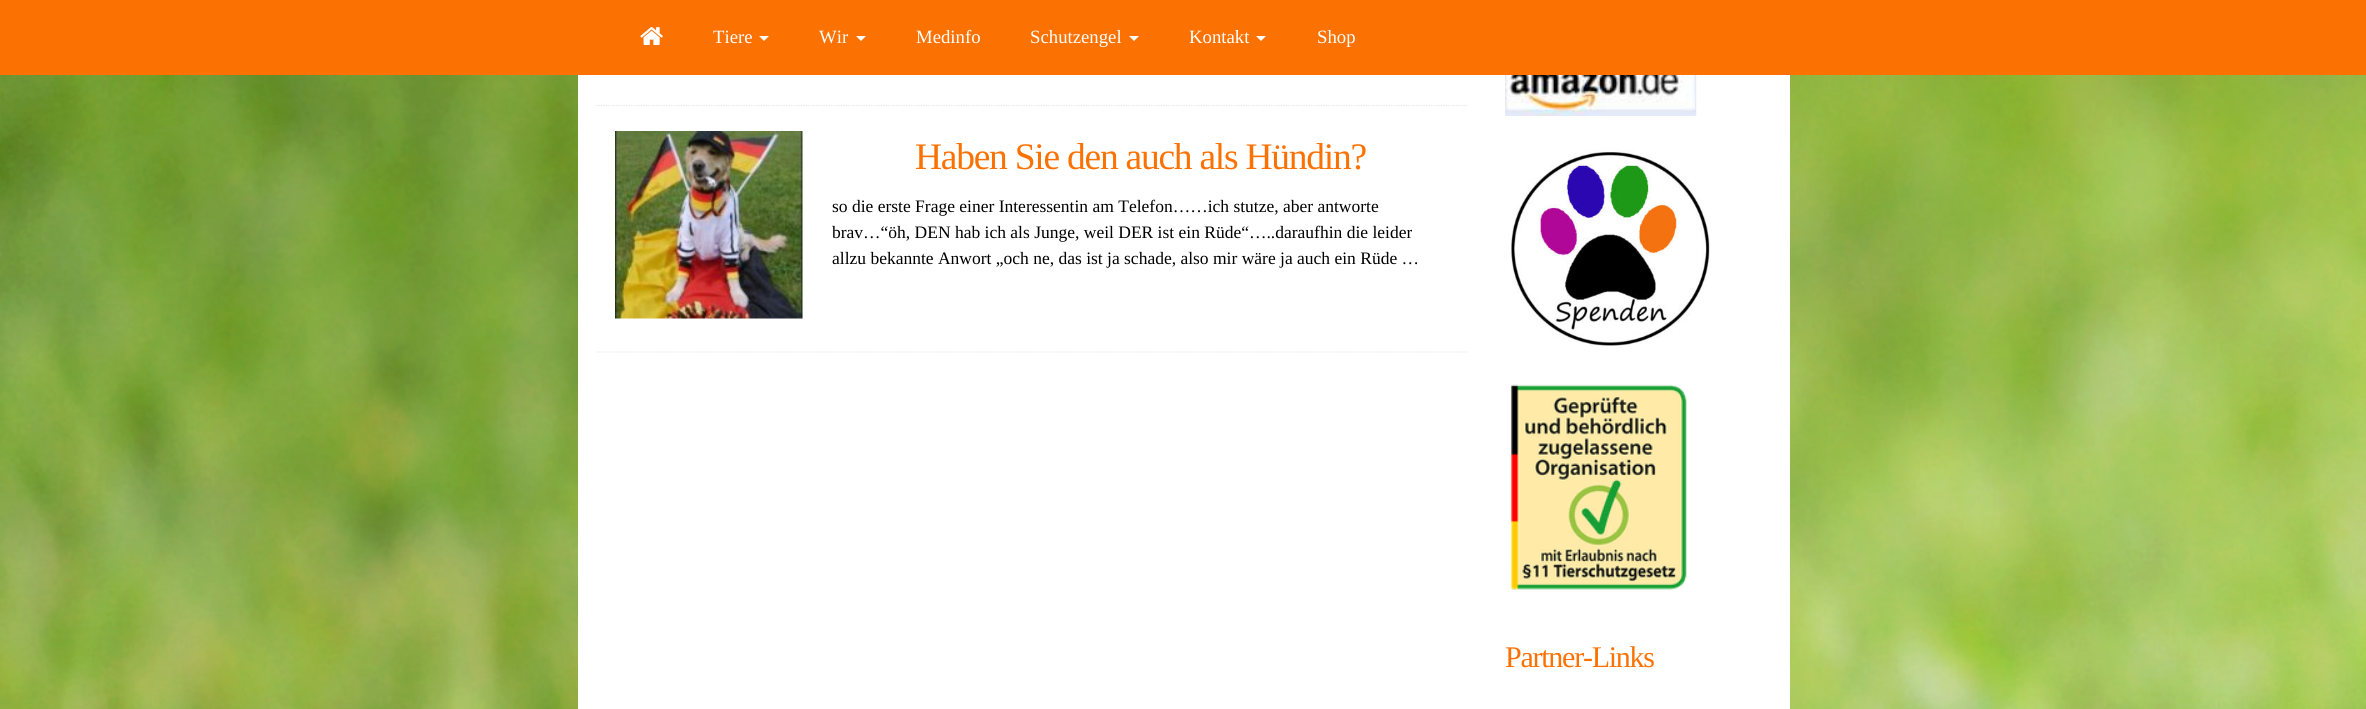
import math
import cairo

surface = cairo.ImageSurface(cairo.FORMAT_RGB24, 2366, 709)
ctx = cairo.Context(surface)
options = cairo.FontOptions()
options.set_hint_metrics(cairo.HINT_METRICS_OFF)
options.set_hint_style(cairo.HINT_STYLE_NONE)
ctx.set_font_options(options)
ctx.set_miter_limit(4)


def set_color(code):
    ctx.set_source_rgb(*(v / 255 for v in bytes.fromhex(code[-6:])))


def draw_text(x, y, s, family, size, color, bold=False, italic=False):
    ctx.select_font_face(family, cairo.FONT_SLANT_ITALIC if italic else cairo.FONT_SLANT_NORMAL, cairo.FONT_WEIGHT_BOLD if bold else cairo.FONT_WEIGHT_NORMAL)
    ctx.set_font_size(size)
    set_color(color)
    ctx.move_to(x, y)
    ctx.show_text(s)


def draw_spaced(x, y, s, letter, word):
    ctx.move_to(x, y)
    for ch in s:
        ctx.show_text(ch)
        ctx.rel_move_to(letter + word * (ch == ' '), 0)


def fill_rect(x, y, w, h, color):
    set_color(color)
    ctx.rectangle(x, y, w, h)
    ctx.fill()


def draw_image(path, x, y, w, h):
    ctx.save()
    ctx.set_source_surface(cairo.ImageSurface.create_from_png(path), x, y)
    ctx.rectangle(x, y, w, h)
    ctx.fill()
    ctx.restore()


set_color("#ffffff")
ctx.paint()
draw_image("assets/img1.png", 0, 75, 2366, 634)
fill_rect(0, 0, 2366, 75, "#fb7203")
draw_image("assets/img2.png", 640, 27, 23, 18)
draw_text(713, 43, "Tiere", "Liberation Serif", 18.75, "#ffffff")
ctx.new_path()
ctx.move_to(759, 36)
ctx.line_to(769, 36)
ctx.line_to(764, 41)
ctx.close_path()
ctx.fill()
draw_text(819, 43, "Wir", "Liberation Serif", 18.75, "#ffffff")
ctx.new_path()
ctx.move_to(856, 36)
ctx.line_to(866, 36)
ctx.line_to(861, 41)
ctx.close_path()
ctx.fill()
draw_text(916, 43, "Medinfo", "Liberation Serif", 18.75, "#ffffff")
draw_text(1030, 43, "Schutzengel", "Liberation Serif", 18.75, "#ffffff")
ctx.new_path()
ctx.move_to(1129, 36)
ctx.line_to(1139, 36)
ctx.line_to(1134, 41)
ctx.close_path()
ctx.fill()
draw_text(1189, 43, "Kontakt", "Liberation Serif", 18.75, "#ffffff")
ctx.new_path()
ctx.move_to(1256, 36)
ctx.line_to(1266, 36)
ctx.line_to(1261, 41)
ctx.close_path()
ctx.fill()
draw_text(1317, 43, "Shop", "Liberation Serif", 18.75, "#ffffff")
fill_rect(578, 75, 1212, 634, "#ffffff")
ctx.new_path()
ctx.move_to(596, 105.5)
ctx.line_to(1467.5, 105.5)
set_color("#e8e8e8")
ctx.set_line_width(1.2)
ctx.set_dash([1.25, 1.25])
ctx.stroke()
ctx.new_path()
ctx.move_to(596, 352)
ctx.line_to(1467.5, 352)
ctx.stroke()
draw_image("assets/img3.png", 615, 131, 188, 188)
ctx.set_font_size(37.5)
set_color("#fb7203")
draw_spaced(915, 169, "Haben Sie den auch als Hündin?", -1.25, 0)
draw_text(832, 212, "so die erste Frage einer Interessentin am Telefon……ich stutze, aber antworte", "Liberation Serif", 17.5, "#000000")
draw_text(832, 238, "brav…“öh, DEN hab ich als Junge, weil DER ist ein Rüde“…..daraufhin die leider", "Liberation Serif", 17.5, "#000000")
draw_text(832, 264, "allzu bekannte Anwort „och ne, das ist ja schade, also mir wäre ja auch ein Rüde …", "Liberation Serif", 17.5, "#000000")
draw_image("assets/img4.png", 1505, 75, 192, 41)
draw_image("assets/img5.png", 1511, 149, 200, 197)
draw_image("assets/img6.png", 1510, 384, 177, 206)
ctx.set_font_size(30)
set_color("#fb7203")
draw_spaced(1505, 667, "Partner-Links", -1.25, 0)
surface.write_to_png("output.png")
